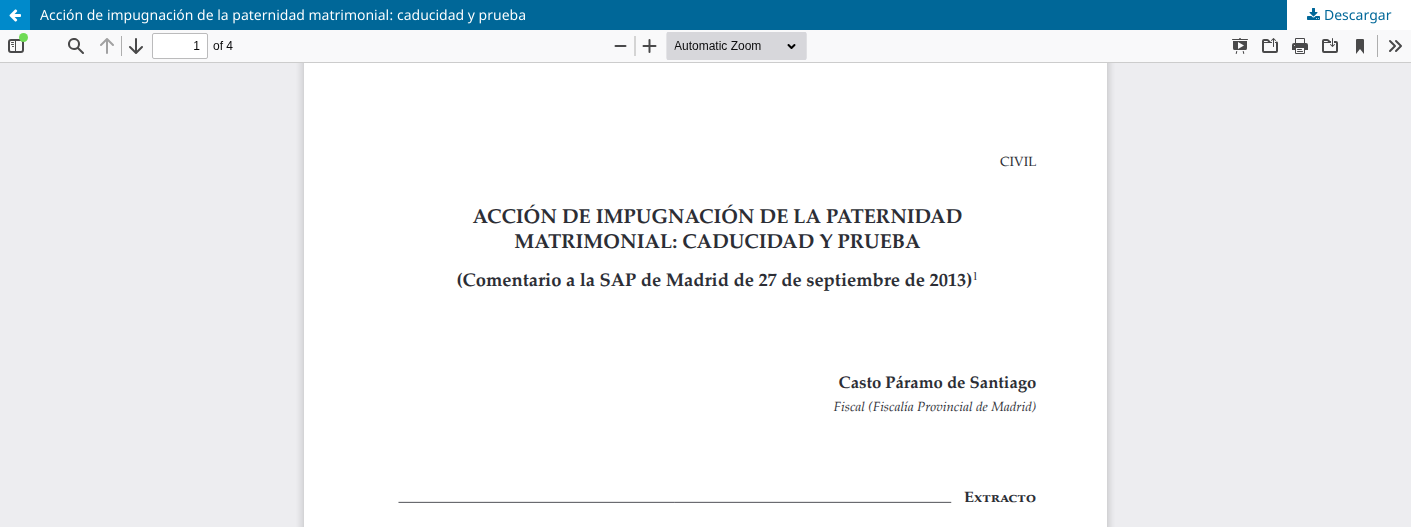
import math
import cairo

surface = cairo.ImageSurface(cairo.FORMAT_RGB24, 1411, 527)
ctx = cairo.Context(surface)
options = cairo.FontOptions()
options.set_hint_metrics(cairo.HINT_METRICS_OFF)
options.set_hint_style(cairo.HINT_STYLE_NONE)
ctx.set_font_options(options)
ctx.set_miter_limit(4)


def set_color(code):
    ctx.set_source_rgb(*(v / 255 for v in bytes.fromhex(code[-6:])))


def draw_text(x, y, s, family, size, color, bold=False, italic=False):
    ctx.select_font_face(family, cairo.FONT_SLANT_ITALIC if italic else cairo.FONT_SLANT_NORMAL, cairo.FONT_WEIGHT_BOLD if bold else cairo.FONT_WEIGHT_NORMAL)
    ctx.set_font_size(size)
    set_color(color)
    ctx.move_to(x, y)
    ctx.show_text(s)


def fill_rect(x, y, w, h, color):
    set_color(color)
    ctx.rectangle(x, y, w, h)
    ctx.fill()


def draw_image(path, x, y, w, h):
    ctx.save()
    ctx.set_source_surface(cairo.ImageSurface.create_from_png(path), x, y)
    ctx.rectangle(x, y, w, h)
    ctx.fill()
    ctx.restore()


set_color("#ffffff")
ctx.paint()
fill_rect(30, 0, 1257, 30, "#006798")
fill_rect(0, 0, 30, 30, "#008acb")
draw_image("assets/img1.png", 9, 9, 12, 13)
draw_text(40, 20, "Acción de impugnación de la paternidad matrimonial: caducidad y prueba", "Noto Sans", 14, "#ffffff")
draw_image("assets/img2.png", 1307, 8, 13, 12)
draw_text(1324, 20, "Descargar", "Noto Sans", 14, "#006798")
draw_image("assets/img3.png", 0, 30, 1411, 497)
surface.write_to_png("output.png")
